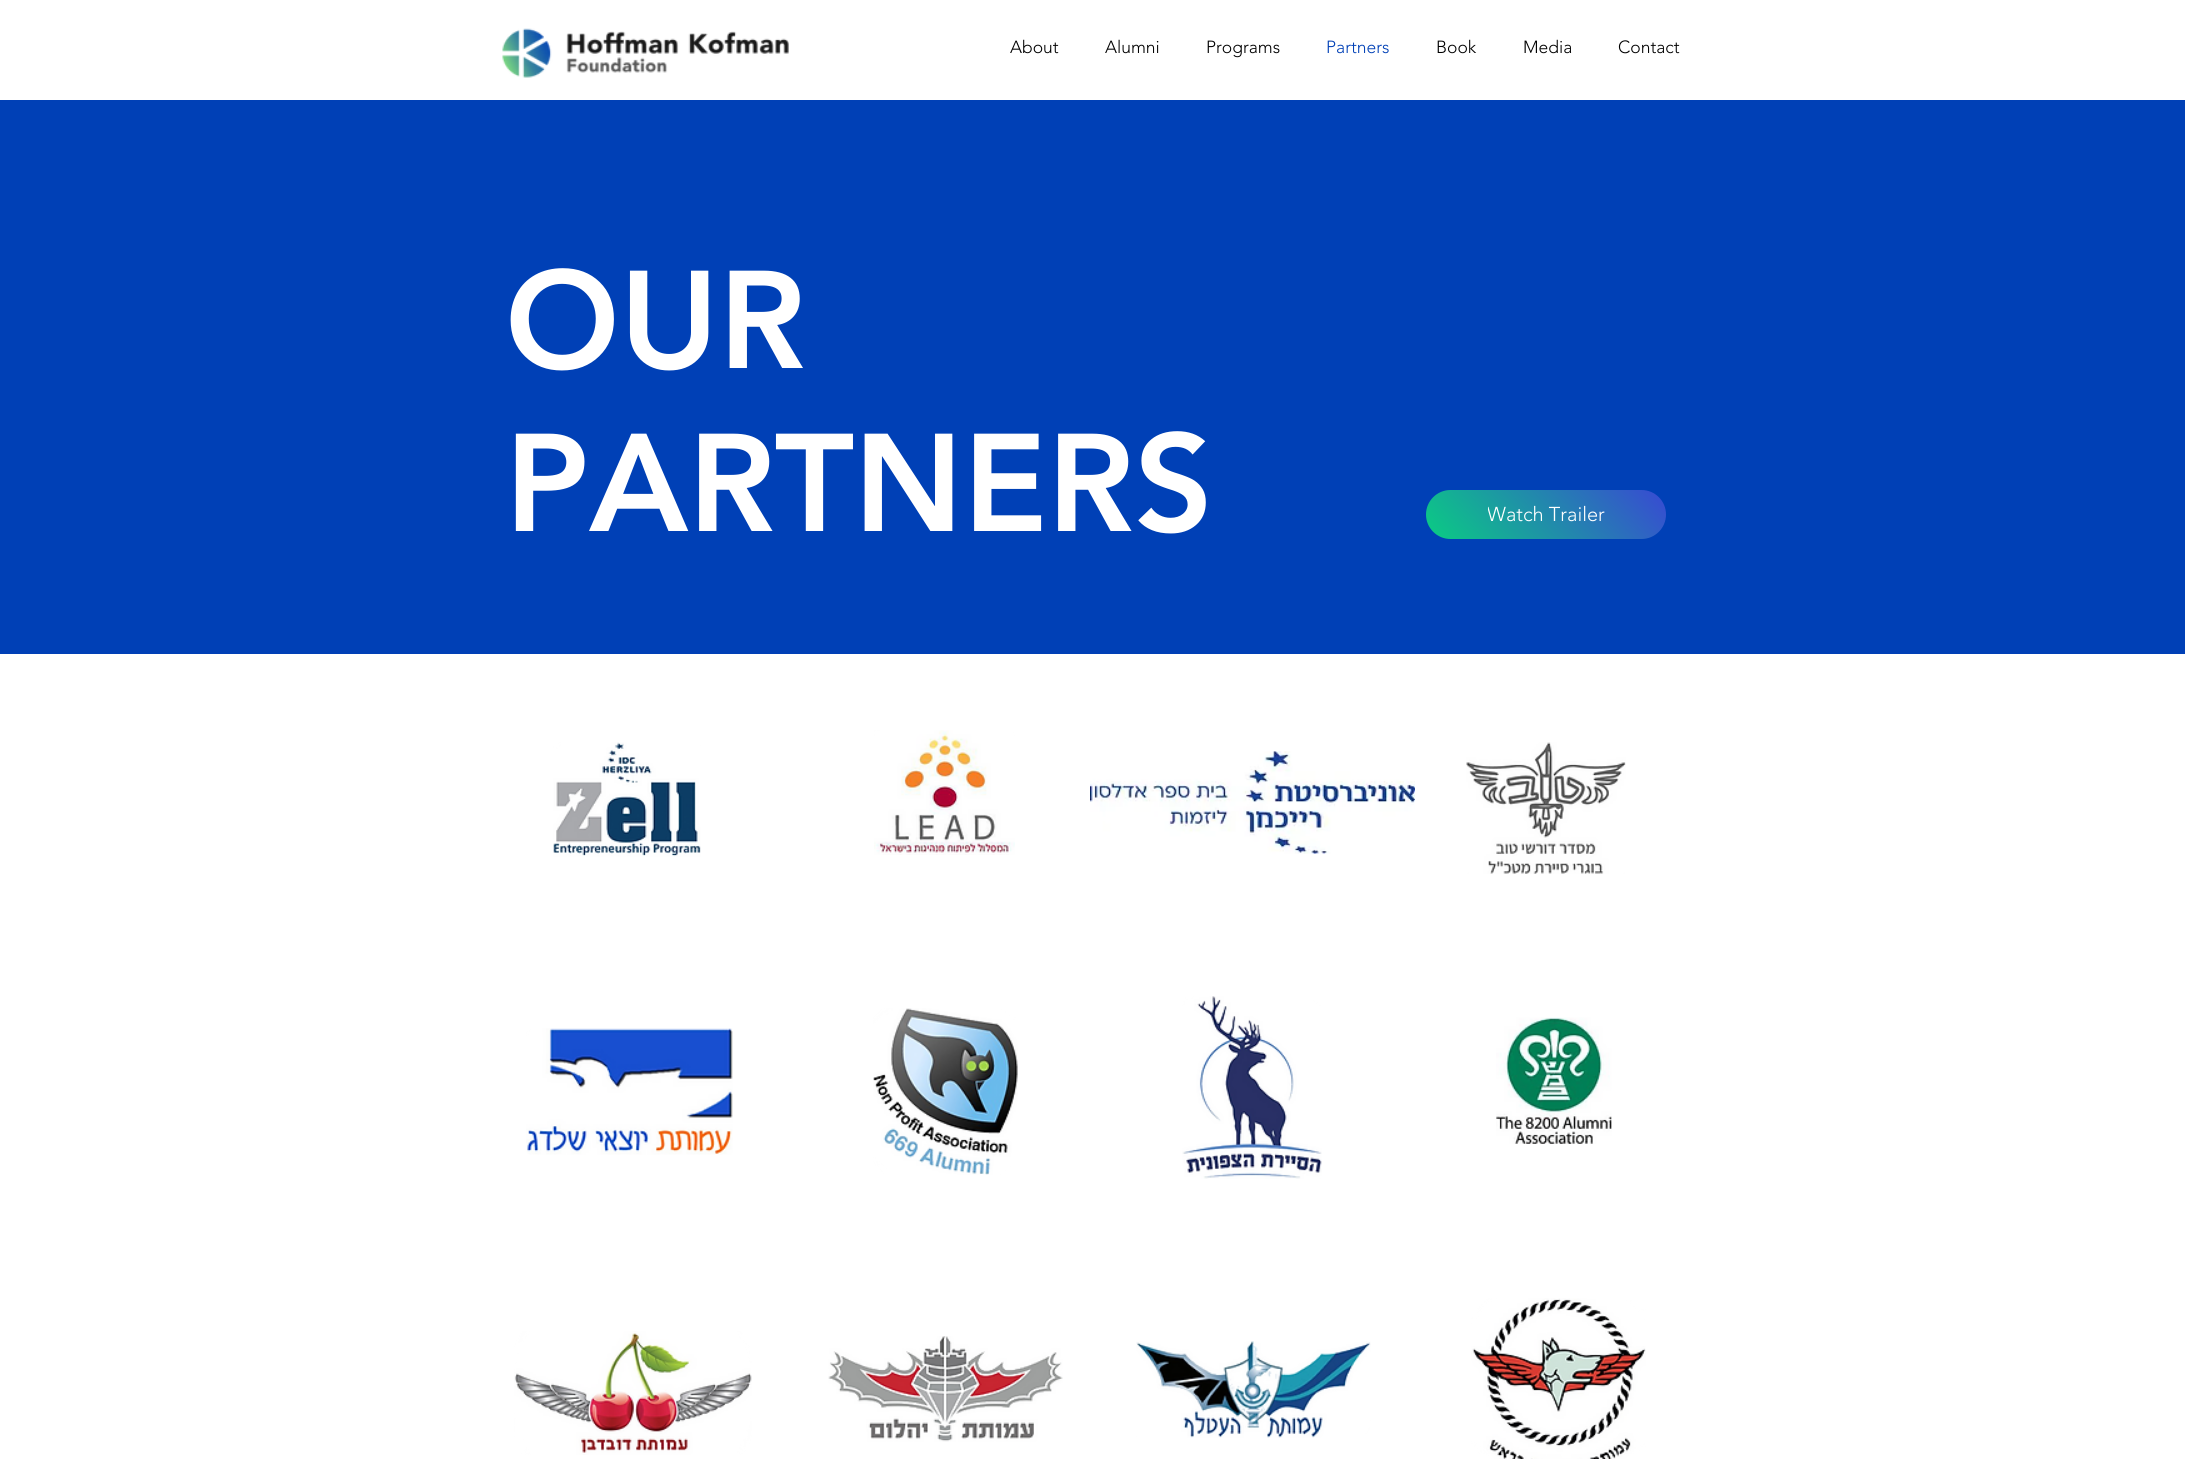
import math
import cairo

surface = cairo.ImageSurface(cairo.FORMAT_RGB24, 2185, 1459)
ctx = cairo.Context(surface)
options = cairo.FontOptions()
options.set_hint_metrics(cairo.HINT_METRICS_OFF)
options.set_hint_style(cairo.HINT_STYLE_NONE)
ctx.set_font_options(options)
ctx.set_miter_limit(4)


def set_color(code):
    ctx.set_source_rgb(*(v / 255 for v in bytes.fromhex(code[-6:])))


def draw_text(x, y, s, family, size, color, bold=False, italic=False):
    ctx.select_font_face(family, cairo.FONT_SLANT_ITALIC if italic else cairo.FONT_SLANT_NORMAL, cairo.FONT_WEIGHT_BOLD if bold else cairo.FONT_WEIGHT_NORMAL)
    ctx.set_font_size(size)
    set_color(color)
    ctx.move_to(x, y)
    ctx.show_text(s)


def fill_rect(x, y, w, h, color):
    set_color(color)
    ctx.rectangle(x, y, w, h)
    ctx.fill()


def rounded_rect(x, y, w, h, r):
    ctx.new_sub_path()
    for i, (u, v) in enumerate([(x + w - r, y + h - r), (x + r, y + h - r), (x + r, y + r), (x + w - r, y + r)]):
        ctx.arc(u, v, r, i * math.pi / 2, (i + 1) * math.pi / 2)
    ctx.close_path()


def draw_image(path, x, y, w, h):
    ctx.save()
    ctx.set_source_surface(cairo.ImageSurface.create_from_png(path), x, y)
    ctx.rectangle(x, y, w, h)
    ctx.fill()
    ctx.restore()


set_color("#ffffff")
ctx.paint()
draw_image("assets/img1.png", 502, 28, 287, 50)
draw_text(1010, 53, "About", "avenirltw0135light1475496 Light", 17.5, "#000000")
draw_text(1105, 53, "Alumni", "avenirltw0135light1475496 Light", 17.5, "#000000")
draw_text(1206, 53, "Programs", "avenirltw0135light1475496 Light", 17.5, "#000000")
draw_text(1326, 53, "Partners", "avenirltw0135light1475496 Light", 17.5, "#0040b6")
draw_text(1436, 53, "Book", "avenirltw0135light1475496 Light", 17.5, "#000000")
draw_text(1523, 53, "Media", "avenirltw0135light1475496 Light", 17.5, "#000000")
draw_text(1618, 53, "Contact", "avenirltw0135light1475496 Light", 17.5, "#000000")
fill_rect(0, 100, 2185, 554, "#0040b6")
draw_text(505, 368, "OUR", "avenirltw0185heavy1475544 Black", 137.5, "#ffffff")
draw_text(505, 531, "PARTNERS", "avenirltw0185heavy1475544 Black", 137.5, "#ffffff")
gradient = cairo.LinearGradient(1627, 444, 1466, 584)
gradient.add_color_stop_rgba(0.01, 0.22, 0.29, 0.827, 1)
gradient.add_color_stop_rgba(1, 0.039, 0.8, 0.514, 1)
ctx.set_source(gradient)
rounded_rect(1426, 490, 240, 49, 24.5)
ctx.fill()
ctx.save()
ctx.rectangle(1488, 503, 117, 23)
ctx.clip()
draw_text(1487, 521, "Watch Trailer", "avenirltw0135light1475496 Light", 20, "#ffffff")
ctx.restore()
draw_image("assets/img2.png", 553, 742, 148, 115)
draw_image("assets/img3.png", 874, 730, 141, 125)
draw_image("assets/img4.png", 1090, 751, 325, 103)
draw_image("assets/img5.png", 1466, 742, 160, 132)
draw_image("assets/img6.png", 526, 1028, 207, 127)
draw_image("assets/img7.png", 873, 1008, 145, 167)
draw_image("assets/img8.png", 1182, 996, 140, 183)
draw_image("assets/img9.png", 1496, 1017, 116, 127)
draw_image("assets/img10.png", 514, 1331, 238, 124)
draw_image("assets/img11.png", 828, 1336, 235, 106)
draw_image("assets/img12.png", 1136, 1341, 235, 97)
draw_image("assets/img13.png", 1471, 1298, 175, 161)
surface.write_to_png("output.png")
